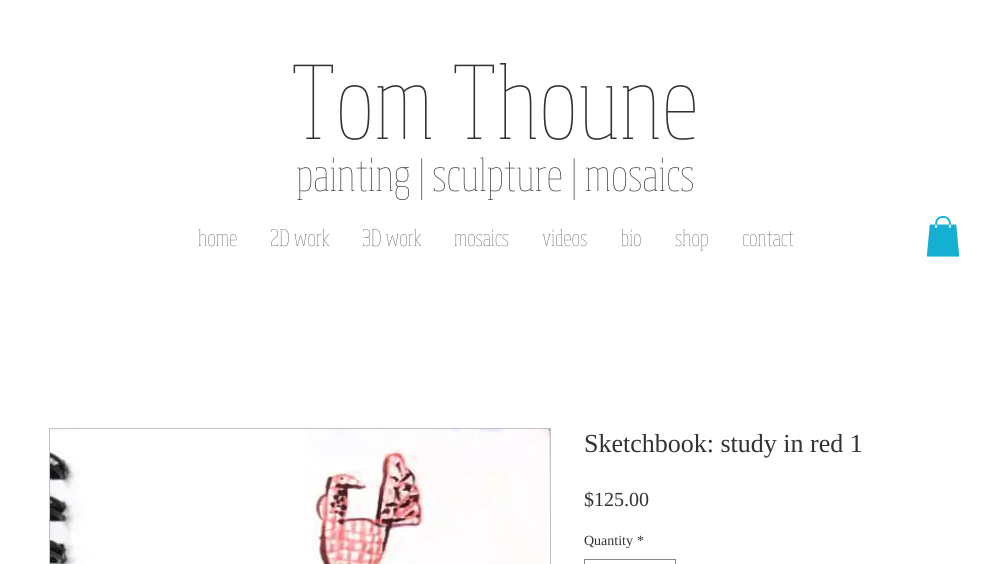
import math
import cairo

surface = cairo.ImageSurface(cairo.FORMAT_RGB24, 988, 564)
ctx = cairo.Context(surface)
options = cairo.FontOptions()
options.set_hint_metrics(cairo.HINT_METRICS_OFF)
options.set_hint_style(cairo.HINT_STYLE_NONE)
ctx.set_font_options(options)
ctx.set_miter_limit(4)


def set_color(code):
    ctx.set_source_rgb(*(v / 255 for v in bytes.fromhex(code[-6:])))


def draw_text(x, y, s, family, size, color, bold=False, italic=False):
    ctx.select_font_face(family, cairo.FONT_SLANT_ITALIC if italic else cairo.FONT_SLANT_NORMAL, cairo.FONT_WEIGHT_BOLD if bold else cairo.FONT_WEIGHT_NORMAL)
    ctx.set_font_size(size)
    set_color(color)
    ctx.move_to(x, y)
    ctx.show_text(s)


def draw_image(path, x, y, w, h):
    ctx.save()
    ctx.set_source_surface(cairo.ImageSurface.create_from_png(path), x, y)
    ctx.rectangle(x, y, w, h)
    ctx.fill()
    ctx.restore()


set_color("#ffffff")
ctx.paint()
draw_image("assets/img1.png", 293, 63, 402, 77)
draw_image("assets/img2.png", 297, 157, 396, 44)
draw_image("assets/img3.png", 198, 229, 39, 18)
draw_image("assets/img4.png", 271, 229, 59, 18)
draw_image("assets/img5.png", 363, 229, 59, 18)
draw_image("assets/img6.png", 454, 229, 55, 18)
draw_image("assets/img7.png", 542, 229, 45, 18)
draw_image("assets/img8.png", 621, 229, 20, 18)
draw_image("assets/img9.png", 675, 229, 33, 22)
draw_image("assets/img10.png", 743, 231, 51, 16)
draw_image("assets/img11.png", 926, 216, 34, 41)
ctx.rectangle(49.5, 428.5, 501, 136)
set_color("#c2c2c2")
ctx.set_line_width(1)
ctx.stroke()
draw_image("assets/img12.png", 50, 429, 500, 135)
draw_text(584, 452, "Sketchbook: study in red 1", "Liberation Serif", 26, "#333131")
draw_text(584, 506, "$125.00", "Liberation Serif", 20, "#333131")
draw_text(584, 545, "Quantity", "Liberation Serif", 14, "#333131")
draw_text(637, 545, "*", "Liberation Serif", 14, "#333131")
ctx.rectangle(584.5, 559.5, 91, 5)
set_color("#858383")
ctx.stroke()
surface.write_to_png("output.png")
